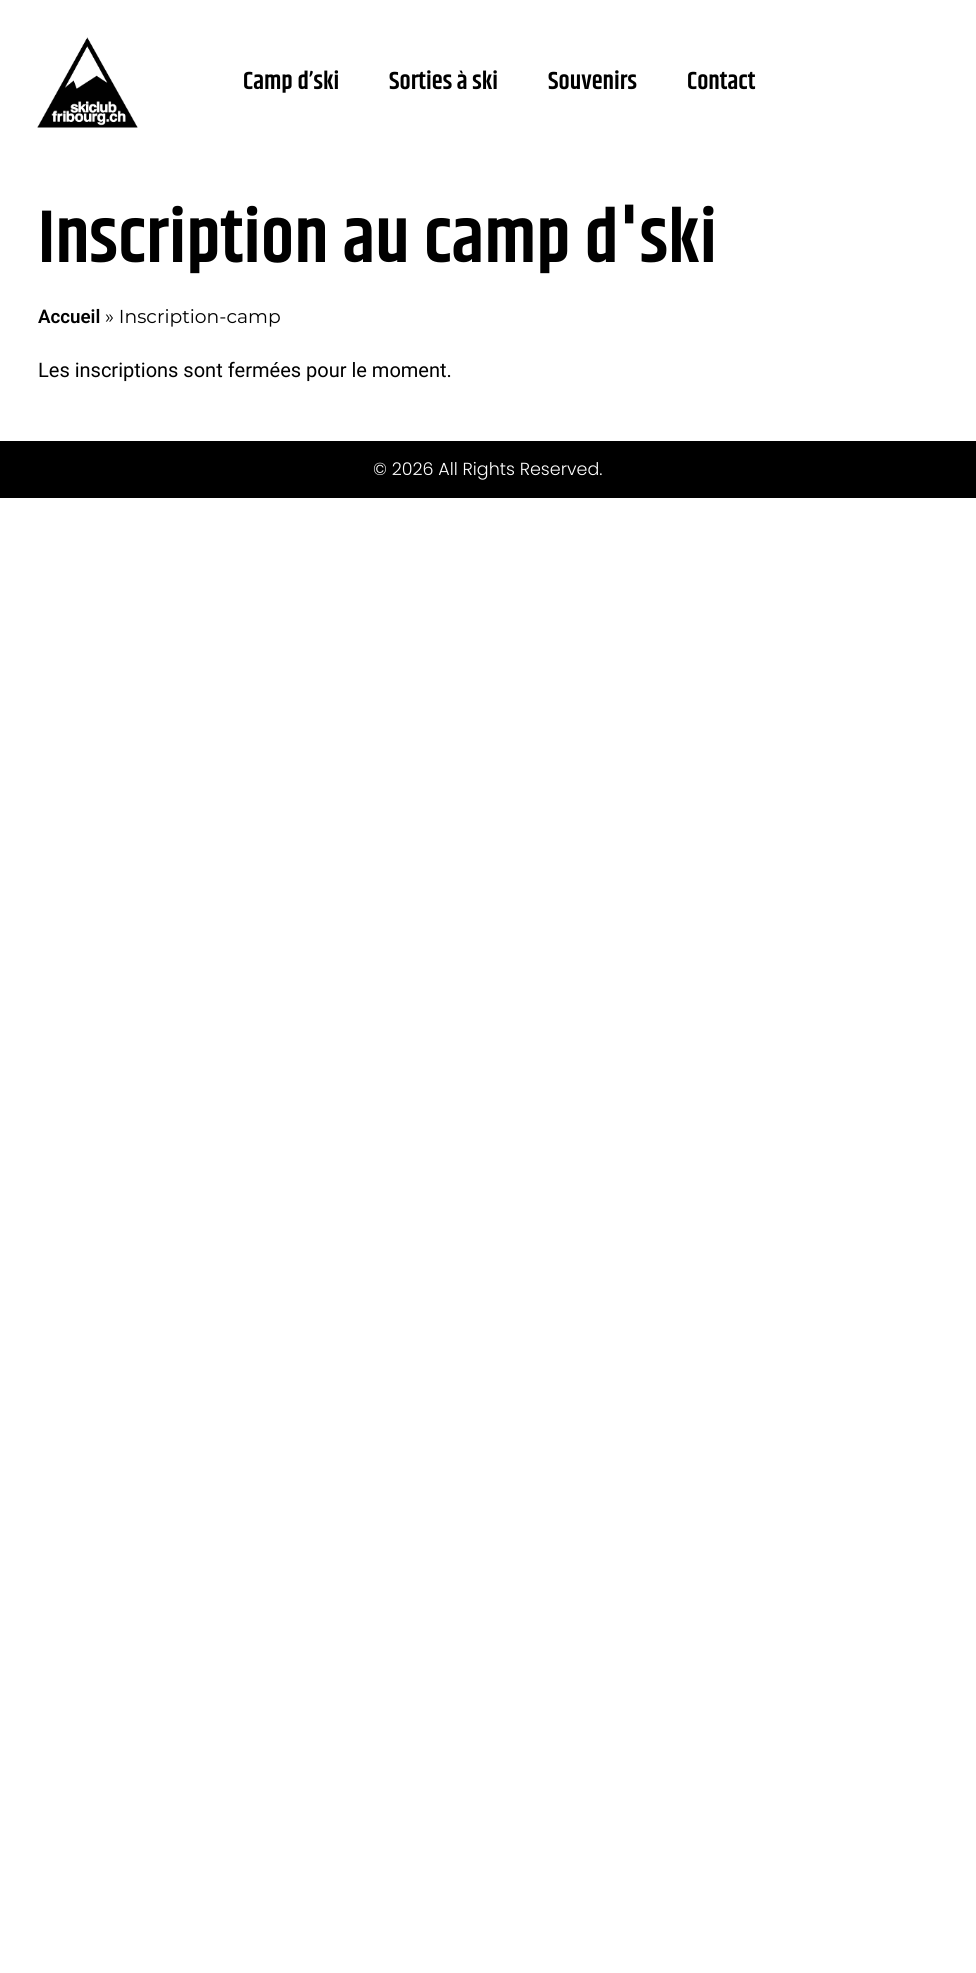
import math
import cairo

surface = cairo.ImageSurface(cairo.FORMAT_RGB24, 976, 1973)
ctx = cairo.Context(surface)
options = cairo.FontOptions()
options.set_hint_metrics(cairo.HINT_METRICS_OFF)
options.set_hint_style(cairo.HINT_STYLE_NONE)
ctx.set_font_options(options)
ctx.set_miter_limit(4)


def set_color(code):
    ctx.set_source_rgb(*(v / 255 for v in bytes.fromhex(code[-6:])))


def draw_text(x, y, s, family, size, color, bold=False, italic=False):
    ctx.select_font_face(family, cairo.FONT_SLANT_ITALIC if italic else cairo.FONT_SLANT_NORMAL, cairo.FONT_WEIGHT_BOLD if bold else cairo.FONT_WEIGHT_NORMAL)
    ctx.set_font_size(size)
    set_color(color)
    ctx.move_to(x, y)
    ctx.show_text(s)


def fill_rect(x, y, w, h, color):
    set_color(color)
    ctx.rectangle(x, y, w, h)
    ctx.fill()


def draw_image(path, x, y, w, h):
    ctx.save()
    ctx.set_source_surface(cairo.ImageSurface.create_from_png(path), x, y)
    ctx.rectangle(x, y, w, h)
    ctx.fill()
    ctx.restore()


set_color("#ffffff")
ctx.paint()
draw_image("assets/img1.png", 37, 37, 101, 91)
draw_text(243, 89, "Camp d’ski", "Khand SemiBold", 25, "#000000")
draw_text(389, 89, "Sorties à ski", "Khand SemiBold", 25, "#000000")
draw_text(548, 89, "Souvenirs", "Khand SemiBold", 25, "#000000")
draw_text(687, 89, "Contact", "Khand SemiBold", 25, "#000000")
draw_text(38, 262, "Inscription au camp d'ski", "Khand SemiBold", 75, "#000000")
draw_text(38, 323, "Accueil", "Roboto SemiBold", 18.75, "#000000")
draw_text(105, 323, "» Inscription-camp", "Montserrat", 18.75, "#000000")
draw_text(38, 377, "Les inscriptions sont fermées pour le moment.", "Roboto", 20, "#000000")
fill_rect(0, 441, 976, 57, "#000000")
draw_text(373, 475, "© 2026 All Rights Reserved.", "Poppins Light", 17.5, "#ffffff")
surface.write_to_png("output.png")
